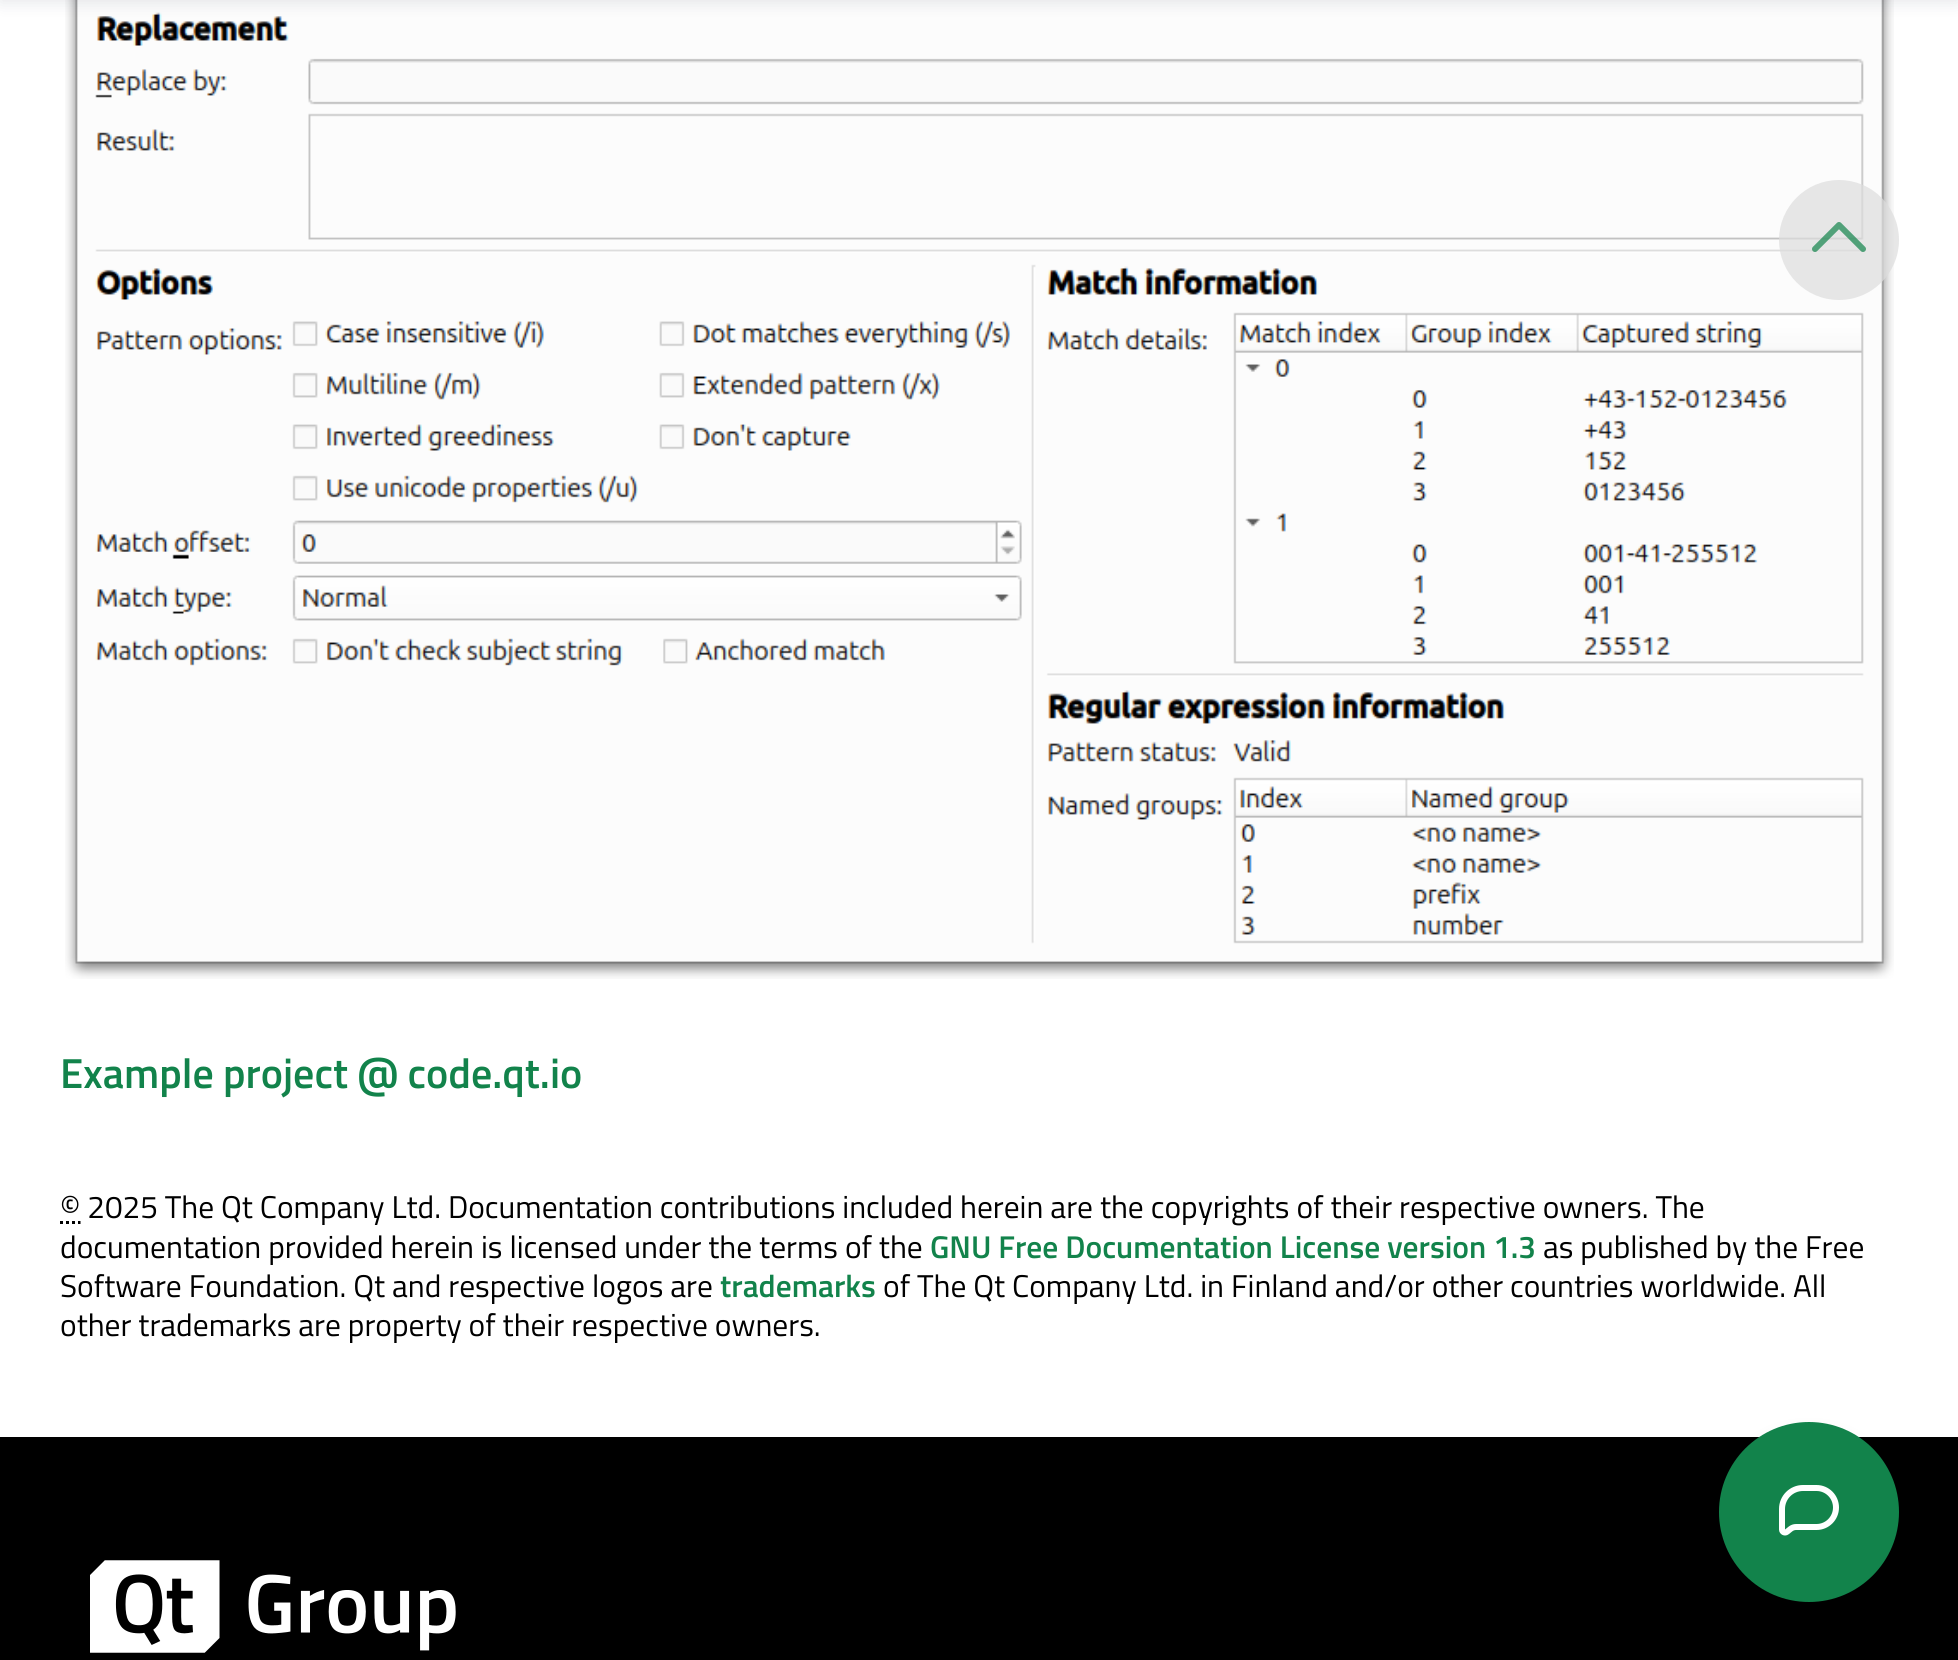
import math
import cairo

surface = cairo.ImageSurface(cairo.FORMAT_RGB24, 1958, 1660)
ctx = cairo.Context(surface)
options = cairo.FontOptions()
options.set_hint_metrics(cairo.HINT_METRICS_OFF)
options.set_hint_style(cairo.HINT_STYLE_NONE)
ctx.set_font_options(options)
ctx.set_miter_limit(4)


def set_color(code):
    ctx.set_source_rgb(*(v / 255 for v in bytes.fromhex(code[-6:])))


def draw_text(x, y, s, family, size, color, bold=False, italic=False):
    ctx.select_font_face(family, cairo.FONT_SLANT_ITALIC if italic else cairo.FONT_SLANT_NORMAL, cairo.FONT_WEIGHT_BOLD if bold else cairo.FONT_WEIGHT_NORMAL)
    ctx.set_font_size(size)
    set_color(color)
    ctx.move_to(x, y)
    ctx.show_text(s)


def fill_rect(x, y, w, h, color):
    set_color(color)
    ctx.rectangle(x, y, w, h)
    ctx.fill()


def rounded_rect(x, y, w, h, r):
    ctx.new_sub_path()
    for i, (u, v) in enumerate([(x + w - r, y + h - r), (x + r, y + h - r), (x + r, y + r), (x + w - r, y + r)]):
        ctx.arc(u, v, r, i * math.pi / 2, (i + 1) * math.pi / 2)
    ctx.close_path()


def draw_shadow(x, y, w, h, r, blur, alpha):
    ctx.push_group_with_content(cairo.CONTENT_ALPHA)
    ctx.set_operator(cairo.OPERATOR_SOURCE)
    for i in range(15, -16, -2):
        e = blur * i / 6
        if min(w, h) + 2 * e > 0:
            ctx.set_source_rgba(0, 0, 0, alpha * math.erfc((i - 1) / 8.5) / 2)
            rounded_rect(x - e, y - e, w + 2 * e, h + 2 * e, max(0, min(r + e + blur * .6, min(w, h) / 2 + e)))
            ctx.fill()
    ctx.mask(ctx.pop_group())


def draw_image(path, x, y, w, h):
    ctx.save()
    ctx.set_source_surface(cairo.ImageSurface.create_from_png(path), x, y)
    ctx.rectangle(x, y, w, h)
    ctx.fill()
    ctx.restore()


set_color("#ffffff")
ctx.paint()
draw_image("assets/img1.png", 65, 0, 1829, 979)
set_color("#09102b")
draw_shadow(0, -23, 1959, 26, 0, 7.5, 0.1)
ctx.set_source_rgba(0.867, 0.867, 0.867, 0.7)
ctx.arc(1839, 240, 60, 0, 2 * math.pi)
ctx.fill()
ctx.new_path()
ctx.move_to(1815, 249)
ctx.line_to(1839, 225)
ctx.line_to(1863, 249)
ctx.set_source_rgba(0.071, 0.514, 0.294, 0.7)
ctx.set_line_width(6)
ctx.set_line_cap(cairo.LINE_CAP_ROUND)
ctx.set_line_join(cairo.LINE_JOIN_ROUND)
ctx.stroke()
draw_text(60, 1088, "Example project @ code.qt.io", "Titillium Web SemiBold", 42, "#12834b")
ctx.new_path()
ctx.move_to(60, 1222.5)
ctx.line_to(63, 1222.5)
ctx.move_to(66, 1222.5)
ctx.line_to(69, 1222.5)
ctx.move_to(72, 1222.5)
ctx.line_to(75, 1222.5)
ctx.move_to(78, 1222.5)
ctx.line_to(80.5, 1222.5)
set_color("#000000")
ctx.set_line_width(3)
ctx.set_line_cap(cairo.LINE_CAP_BUTT)
ctx.set_line_join(cairo.LINE_JOIN_MITER)
ctx.stroke()
draw_text(60, 1218, "© 2025 The Qt Company Ltd. Documentation contributions included herein are the copyrights of their respective owners. The", "Titillium Web", 31.5, "#000000")
draw_text(60, 1258, "documentation provided herein is licensed under the terms of the", "Titillium Web", 31.5, "#000000")
draw_text(930, 1258, "GNU Free Documentation License version 1.3", "Titillium Web SemiBold", 31.5, "#12834b")
draw_text(1543, 1258, "as published by the Free", "Titillium Web", 31.5, "#000000")
draw_text(60, 1297, "Software Foundation. Qt and respective logos are", "Titillium Web", 31.5, "#000000")
draw_text(720, 1297, "trademarks", "Titillium Web SemiBold", 31.5, "#12834b")
draw_text(883, 1297, "of The Qt Company Ltd. in Finland and/or other countries worldwide. All", "Titillium Web", 31.5, "#000000")
draw_text(60, 1336, "other trademarks are property of their respective owners.", "Titillium Web", 31.5, "#000000")
fill_rect(0, 1437, 1958, 223, "#000000")
set_color("#000000")
draw_shadow(1719, 1434, 180, 180, 90, 9, 0.1)
set_color("#12834b")
ctx.arc(1809, 1512, 90, 0, 2 * math.pi)
ctx.fill()
draw_image("assets/img2.png", 1779, 1485, 60, 51)
draw_image("assets/img3.png", 90, 1560, 366, 93)
surface.write_to_png("output.png")
